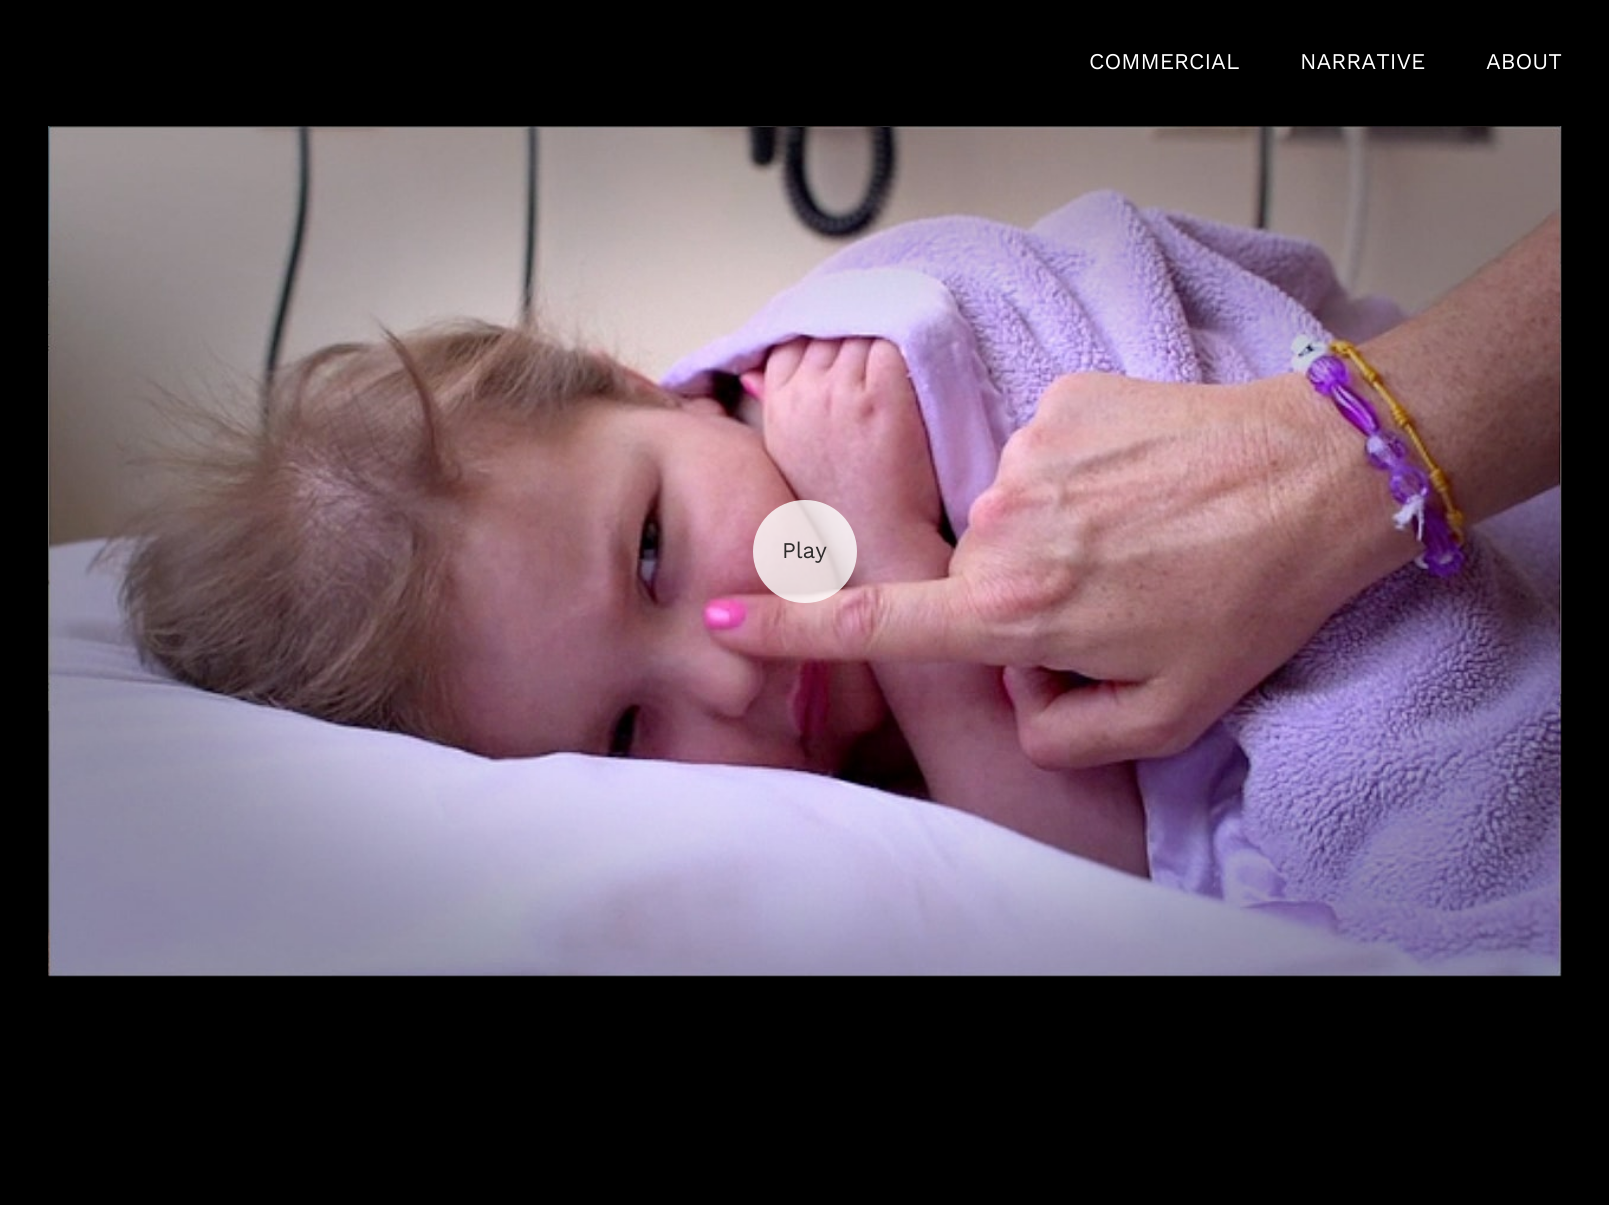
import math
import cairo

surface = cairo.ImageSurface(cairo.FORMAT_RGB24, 1609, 1205)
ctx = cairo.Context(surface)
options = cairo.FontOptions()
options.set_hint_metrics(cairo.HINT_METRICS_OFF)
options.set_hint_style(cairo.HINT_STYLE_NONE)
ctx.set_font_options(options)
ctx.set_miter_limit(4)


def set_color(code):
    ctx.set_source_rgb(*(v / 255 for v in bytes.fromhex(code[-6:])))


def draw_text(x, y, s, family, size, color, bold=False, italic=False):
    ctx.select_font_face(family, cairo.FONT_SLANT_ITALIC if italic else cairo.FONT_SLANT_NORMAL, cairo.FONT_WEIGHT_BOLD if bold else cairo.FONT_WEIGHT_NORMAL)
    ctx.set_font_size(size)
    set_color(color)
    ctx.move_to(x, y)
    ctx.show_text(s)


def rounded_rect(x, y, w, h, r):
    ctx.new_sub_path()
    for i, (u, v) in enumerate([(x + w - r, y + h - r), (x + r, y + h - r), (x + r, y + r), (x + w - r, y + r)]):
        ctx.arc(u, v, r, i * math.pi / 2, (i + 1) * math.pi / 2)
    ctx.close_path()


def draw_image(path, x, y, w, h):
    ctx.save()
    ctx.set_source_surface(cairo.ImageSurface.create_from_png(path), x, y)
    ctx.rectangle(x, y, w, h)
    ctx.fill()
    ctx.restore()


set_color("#000000")
ctx.paint()
draw_text(1089, 69, "COMMERCIAL", "Work Sans", 22.5, "#ffffff")
draw_text(1300, 69, "NARRATIVE", "Work Sans", 22.5, "#ffffff")
draw_text(1486, 69, "ABOUT", "Work Sans", 22.5, "#ffffff")
draw_image("assets/img1.png", 48, 126, 1514, 851)
ctx.set_source_rgba(1, 1, 1, 0.8)
rounded_rect(753, 500, 104, 103, 51.5)
ctx.fill()
draw_text(782, 558, "Play", "Work Sans", 22.5, "#2f2c2c")
surface.write_to_png("output.png")
